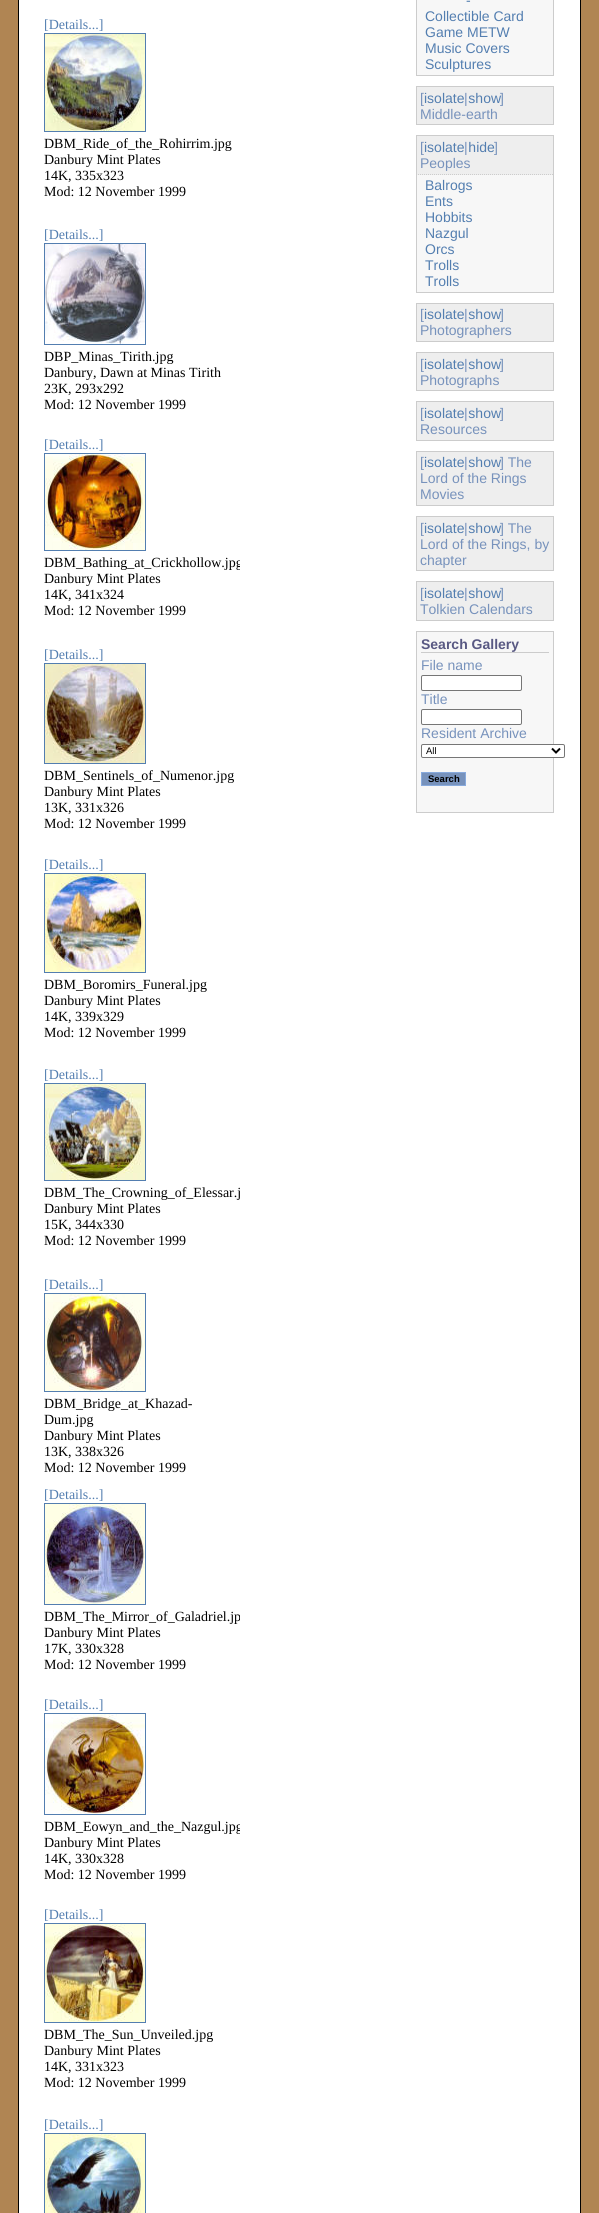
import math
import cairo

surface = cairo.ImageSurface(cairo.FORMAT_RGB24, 599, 2213)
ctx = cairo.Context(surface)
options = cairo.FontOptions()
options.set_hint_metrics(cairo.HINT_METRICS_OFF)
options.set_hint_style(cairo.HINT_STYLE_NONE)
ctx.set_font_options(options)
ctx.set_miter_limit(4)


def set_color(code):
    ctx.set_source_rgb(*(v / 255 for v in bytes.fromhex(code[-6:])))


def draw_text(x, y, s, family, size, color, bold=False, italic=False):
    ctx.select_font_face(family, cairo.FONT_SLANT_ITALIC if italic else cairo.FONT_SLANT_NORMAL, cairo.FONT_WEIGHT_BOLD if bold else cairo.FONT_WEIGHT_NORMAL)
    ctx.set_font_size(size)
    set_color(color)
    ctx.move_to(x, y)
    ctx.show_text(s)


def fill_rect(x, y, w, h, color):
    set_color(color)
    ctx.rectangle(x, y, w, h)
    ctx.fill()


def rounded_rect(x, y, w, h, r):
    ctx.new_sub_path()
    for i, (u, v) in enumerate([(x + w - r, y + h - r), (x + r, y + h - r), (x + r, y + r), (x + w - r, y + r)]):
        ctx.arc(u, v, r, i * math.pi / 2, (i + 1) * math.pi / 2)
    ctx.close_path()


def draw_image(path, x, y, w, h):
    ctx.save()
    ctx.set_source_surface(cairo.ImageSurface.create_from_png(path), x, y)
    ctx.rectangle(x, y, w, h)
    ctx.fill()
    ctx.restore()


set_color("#b08553")
ctx.paint()
set_color("#ffffff")
ctx.rectangle(18.5, -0.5, 562, 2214)
ctx.fill_preserve()
set_color("#000000")
ctx.set_line_width(1)
ctx.stroke()
draw_text(44, 29, "[Details...]", "Liberation Serif", 14, "#537eb0")
ctx.rectangle(44.5, 33.5, 101, 98)
ctx.stroke()
draw_image("assets/img1.png", 45, 34, 100, 97)
draw_text(44, 148, "DBM_Ride_of_the_Rohirrim.jpg", "Liberation Serif", 14, "#000000")
draw_text(44, 164, "Danbury Mint Plates", "Liberation Serif", 14, "#000000")
draw_text(44, 180, "14K, 335x323", "Liberation Serif", 14, "#000000")
draw_text(44, 196, "Mod: 12 November 1999", "Liberation Serif", 14, "#000000")
draw_text(44, 239, "[Details...]", "Liberation Serif", 14, "#537eb0")
ctx.rectangle(44.5, 243.5, 101, 101)
ctx.stroke()
draw_image("assets/img2.png", 45, 244, 100, 100)
draw_text(44, 361, "DBP_Minas_Tirith.jpg", "Liberation Serif", 14, "#000000")
draw_text(44, 377, "Danbury, Dawn at Minas Tirith", "Liberation Serif", 14, "#000000")
draw_text(44, 393, "23K, 293x292", "Liberation Serif", 14, "#000000")
draw_text(44, 409, "Mod: 12 November 1999", "Liberation Serif", 14, "#000000")
draw_text(44, 449, "[Details...]", "Liberation Serif", 14, "#537eb0")
ctx.rectangle(44.5, 453.5, 101, 97)
ctx.stroke()
draw_image("assets/img3.png", 45, 454, 100, 96)
ctx.save()
ctx.rectangle(44, 555, 196, 16)
ctx.clip()
draw_text(44, 567, "DBM_Bathing_at_Crickhollow.jpg", "Liberation Serif", 14, "#000000")
ctx.restore()
draw_text(44, 583, "Danbury Mint Plates", "Liberation Serif", 14, "#000000")
draw_text(44, 599, "14K, 341x324", "Liberation Serif", 14, "#000000")
draw_text(44, 615, "Mod: 12 November 1999", "Liberation Serif", 14, "#000000")
draw_text(44, 659, "[Details...]", "Liberation Serif", 14, "#537eb0")
ctx.rectangle(44.5, 663.5, 101, 100)
ctx.stroke()
draw_image("assets/img4.png", 45, 664, 100, 99)
draw_text(44, 780, "DBM_Sentinels_of_Numenor.jpg", "Liberation Serif", 14, "#000000")
draw_text(44, 796, "Danbury Mint Plates", "Liberation Serif", 14, "#000000")
draw_text(44, 812, "13K, 331x326", "Liberation Serif", 14, "#000000")
draw_text(44, 828, "Mod: 12 November 1999", "Liberation Serif", 14, "#000000")
draw_text(44, 869, "[Details...]", "Liberation Serif", 14, "#537eb0")
ctx.rectangle(44.5, 873.5, 101, 99)
ctx.stroke()
draw_image("assets/img5.png", 45, 874, 100, 98)
draw_text(44, 989, "DBM_Boromirs_Funeral.jpg", "Liberation Serif", 14, "#000000")
draw_text(44, 1005, "Danbury Mint Plates", "Liberation Serif", 14, "#000000")
draw_text(44, 1021, "14K, 339x329", "Liberation Serif", 14, "#000000")
draw_text(44, 1037, "Mod: 12 November 1999", "Liberation Serif", 14, "#000000")
draw_text(44, 1079, "[Details...]", "Liberation Serif", 14, "#537eb0")
ctx.rectangle(44.5, 1083.5, 101, 97)
ctx.stroke()
draw_image("assets/img6.png", 45, 1084, 100, 96)
draw_text(44, 1197, "DBM_The_Crowning_of_Elessar.j", "Liberation Serif", 14, "#000000")
draw_text(44, 1213, "Danbury Mint Plates", "Liberation Serif", 14, "#000000")
draw_text(44, 1229, "15K, 344x330", "Liberation Serif", 14, "#000000")
draw_text(44, 1245, "Mod: 12 November 1999", "Liberation Serif", 14, "#000000")
draw_text(44, 1289, "[Details...]", "Liberation Serif", 14, "#537eb0")
ctx.rectangle(44.5, 1293.5, 101, 98)
ctx.stroke()
draw_image("assets/img7.png", 45, 1294, 100, 97)
draw_text(44, 1408, "DBM_Bridge_at_Khazad-", "Liberation Serif", 14, "#000000")
draw_text(44, 1424, "Dum.jpg", "Liberation Serif", 14, "#000000")
draw_text(44, 1440, "Danbury Mint Plates", "Liberation Serif", 14, "#000000")
draw_text(44, 1456, "13K, 338x326", "Liberation Serif", 14, "#000000")
draw_text(44, 1472, "Mod: 12 November 1999", "Liberation Serif", 14, "#000000")
draw_text(44, 1499, "[Details...]", "Liberation Serif", 14, "#537eb0")
ctx.rectangle(44.5, 1503.5, 101, 101)
ctx.stroke()
draw_image("assets/img8.png", 45, 1504, 100, 100)
ctx.save()
ctx.rectangle(44, 1609, 196, 16)
ctx.clip()
draw_text(44, 1621, "DBM_The_Mirror_of_Galadriel.jp", "Liberation Serif", 14, "#000000")
ctx.restore()
draw_text(44, 1637, "Danbury Mint Plates", "Liberation Serif", 14, "#000000")
draw_text(44, 1653, "17K, 330x328", "Liberation Serif", 14, "#000000")
draw_text(44, 1669, "Mod: 12 November 1999", "Liberation Serif", 14, "#000000")
draw_text(44, 1709, "[Details...]", "Liberation Serif", 14, "#537eb0")
ctx.rectangle(44.5, 1713.5, 101, 101)
ctx.stroke()
draw_image("assets/img9.png", 45, 1714, 100, 100)
ctx.save()
ctx.rectangle(44, 1819, 196, 16)
ctx.clip()
draw_text(44, 1831, "DBM_Eowyn_and_the_Nazgul.jpg", "Liberation Serif", 14, "#000000")
ctx.restore()
draw_text(44, 1847, "Danbury Mint Plates", "Liberation Serif", 14, "#000000")
draw_text(44, 1863, "14K, 330x328", "Liberation Serif", 14, "#000000")
draw_text(44, 1879, "Mod: 12 November 1999", "Liberation Serif", 14, "#000000")
draw_text(44, 1919, "[Details...]", "Liberation Serif", 14, "#537eb0")
ctx.rectangle(44.5, 1923.5, 101, 99)
ctx.stroke()
draw_image("assets/img10.png", 45, 1924, 100, 98)
draw_text(44, 2039, "DBM_The_Sun_Unveiled.jpg", "Liberation Serif", 14, "#000000")
draw_text(44, 2055, "Danbury Mint Plates", "Liberation Serif", 14, "#000000")
draw_text(44, 2071, "14K, 331x323", "Liberation Serif", 14, "#000000")
draw_text(44, 2087, "Mod: 12 November 1999", "Liberation Serif", 14, "#000000")
draw_text(44, 2129, "[Details...]", "Liberation Serif", 14, "#537eb0")
ctx.rectangle(44.5, 2133.5, 101, 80)
ctx.stroke()
draw_image("assets/img11.png", 45, 2134, 100, 79)
fill_rect(417, 0, 136, 75, "#f7f7f7")
fill_rect(553, 0, 1, 76, "#cccccc")
fill_rect(416, 75, 138, 1, "#cccccc")
fill_rect(416, 0, 1, 76, "#cccccc")
draw_text(466, 5, "-", "Liberation Sans", 14, "#537eb0")
draw_text(425, 21, "Collectible Card", "Liberation Sans", 14, "#537eb0")
draw_text(425, 37, "Game METW", "Liberation Sans", 14, "#537eb0")
draw_text(425, 53, "Music Covers", "Liberation Sans", 14, "#537eb0")
draw_text(425, 69, "Sculptures", "Liberation Sans", 14, "#537eb0")
set_color("#eeeeee")
ctx.rectangle(416.5, 86.5, 137, 38)
ctx.fill_preserve()
set_color("#cccccc")
ctx.stroke()
draw_text(420, 103, "[", "Liberation Sans", 14, "#7792bc")
draw_text(424, 103, "isolate show", "Liberation Sans", 14, "#537eb0")
draw_text(464, 103, "|", "Liberation Sans", 14, "#7792bc")
draw_text(500, 103, "]", "Liberation Sans", 14, "#7792bc")
draw_text(420, 119, "Middle-earth", "Liberation Sans", 14, "#7792bc")
fill_rect(417, 136, 136, 39, "#eeeeee")
fill_rect(416, 135, 138, 1, "#cccccc")
fill_rect(553, 135, 1, 158, "#cccccc")
ctx.new_path()
ctx.move_to(416, 174.5)
ctx.line_to(554, 174.5)
ctx.set_dash([1, 1])
ctx.stroke()
fill_rect(416, 135, 1, 40, "#cccccc")
draw_text(420, 152, "[", "Liberation Sans", 14, "#7792bc")
draw_text(424, 152, "isolate hide", "Liberation Sans", 14, "#537eb0")
draw_text(464, 152, "|", "Liberation Sans", 14, "#7792bc")
draw_text(494, 152, "]", "Liberation Sans", 14, "#7792bc")
draw_text(420, 168, "Peoples", "Liberation Sans", 14, "#7792bc")
fill_rect(417, 175, 136, 117, "#f7f7f7")
fill_rect(416, 292, 138, 1, "#cccccc")
fill_rect(416, 175, 1, 118, "#cccccc")
draw_text(425, 190, "Balrogs", "Liberation Sans", 14, "#537eb0")
draw_text(425, 206, "Ents", "Liberation Sans", 14, "#537eb0")
draw_text(425, 222, "Hobbits", "Liberation Sans", 14, "#537eb0")
draw_text(425, 238, "Nazgul", "Liberation Sans", 14, "#537eb0")
draw_text(425, 254, "Orcs", "Liberation Sans", 14, "#537eb0")
draw_text(425, 270, "Trolls", "Liberation Sans", 14, "#537eb0")
draw_text(425, 286, "Trolls", "Liberation Sans", 14, "#537eb0")
set_color("#eeeeee")
ctx.rectangle(416.5, 303.5, 137, 38)
ctx.fill_preserve()
set_color("#cccccc")
ctx.set_dash([])
ctx.stroke()
draw_text(420, 319, "[", "Liberation Sans", 14, "#7792bc")
draw_text(424, 319, "isolate show", "Liberation Sans", 14, "#537eb0")
draw_text(464, 319, "|", "Liberation Sans", 14, "#7792bc")
draw_text(500, 319, "]", "Liberation Sans", 14, "#7792bc")
draw_text(420, 335, "Photographers", "Liberation Sans", 14, "#7792bc")
set_color("#eeeeee")
ctx.rectangle(416.5, 352.5, 137, 38)
ctx.fill_preserve()
set_color("#cccccc")
ctx.stroke()
draw_text(420, 369, "[", "Liberation Sans", 14, "#7792bc")
draw_text(424, 369, "isolate show", "Liberation Sans", 14, "#537eb0")
draw_text(464, 369, "|", "Liberation Sans", 14, "#7792bc")
draw_text(500, 369, "]", "Liberation Sans", 14, "#7792bc")
draw_text(420, 385, "Photographs", "Liberation Sans", 14, "#7792bc")
set_color("#eeeeee")
ctx.rectangle(416.5, 401.5, 137, 39)
ctx.fill_preserve()
set_color("#cccccc")
ctx.stroke()
draw_text(420, 418, "[", "Liberation Sans", 14, "#7792bc")
draw_text(424, 418, "isolate show", "Liberation Sans", 14, "#537eb0")
draw_text(464, 418, "|", "Liberation Sans", 14, "#7792bc")
draw_text(500, 418, "]", "Liberation Sans", 14, "#7792bc")
draw_text(420, 434, "Resources", "Liberation Sans", 14, "#7792bc")
set_color("#eeeeee")
ctx.rectangle(416.5, 451.5, 137, 54)
ctx.fill_preserve()
set_color("#cccccc")
ctx.stroke()
draw_text(420, 467, "[", "Liberation Sans", 14, "#7792bc")
draw_text(424, 467, "isolate show", "Liberation Sans", 14, "#537eb0")
draw_text(464, 467, "|", "Liberation Sans", 14, "#7792bc")
draw_text(500, 467, "] The", "Liberation Sans", 14, "#7792bc")
draw_text(420, 483, "Lord of the Rings", "Liberation Sans", 14, "#7792bc")
draw_text(420, 499, "Movies", "Liberation Sans", 14, "#7792bc")
set_color("#eeeeee")
ctx.rectangle(416.5, 516.5, 137, 54)
ctx.fill_preserve()
set_color("#cccccc")
ctx.stroke()
draw_text(420, 533, "[", "Liberation Sans", 14, "#7792bc")
draw_text(424, 533, "isolate show", "Liberation Sans", 14, "#537eb0")
draw_text(464, 533, "|", "Liberation Sans", 14, "#7792bc")
draw_text(500, 533, "] The", "Liberation Sans", 14, "#7792bc")
draw_text(420, 549, "Lord of the Rings, by", "Liberation Sans", 14, "#7792bc")
draw_text(420, 565, "chapter", "Liberation Sans", 14, "#7792bc")
set_color("#eeeeee")
ctx.rectangle(416.5, 581.5, 137, 39)
ctx.fill_preserve()
set_color("#cccccc")
ctx.stroke()
draw_text(420, 598, "[", "Liberation Sans", 14, "#7792bc")
draw_text(424, 598, "isolate show", "Liberation Sans", 14, "#537eb0")
draw_text(464, 598, "|", "Liberation Sans", 14, "#7792bc")
draw_text(500, 598, "]", "Liberation Sans", 14, "#7792bc")
draw_text(420, 614, "Tolkien Calendars", "Liberation Sans", 14, "#7792bc")
set_color("#f7f7f7")
ctx.rectangle(416.5, 631.5, 137, 181)
ctx.fill_preserve()
set_color("#cccccc")
ctx.stroke()
fill_rect(421, 652, 128, 1, "#cccccc")
draw_text(421, 649, "Search Gallery", "Liberation Sans", 14, "#595983", bold=True)
draw_text(421, 670, "File name", "Liberation Sans", 14, "#7792bc")
set_color("#ffffff")
rounded_rect(421.5, 675.5, 100, 15, 1.5)
ctx.fill_preserve()
set_color("#767676")
ctx.stroke()
draw_text(421, 704, "Title", "Liberation Sans", 14, "#7792bc")
set_color("#ffffff")
rounded_rect(421.5, 709.5, 100, 15, 1.5)
ctx.fill_preserve()
set_color("#767676")
ctx.stroke()
draw_text(421, 738, "Resident Archive", "Liberation Sans", 14, "#7792bc")
set_color("#ffffff")
rounded_rect(421.5, 744.5, 143, 13, 1.5)
ctx.fill_preserve()
set_color("#767676")
ctx.stroke()
ctx.new_path()
ctx.move_to(552, 748.5)
ctx.line_to(556, 752.5)
ctx.line_to(560, 748.5)
set_color("#000000")
ctx.set_line_width(2)
ctx.stroke()
draw_text(426, 754, "All", "Liberation Sans", 9.5, "#000000")
set_color("#7792bc")
ctx.rectangle(421.5, 772.5, 44, 13)
ctx.fill_preserve()
set_color("#88aadd")
ctx.set_line_width(1)
ctx.stroke()
draw_text(428, 782, "Search", "Liberation Sans", 9.5, "#000000", bold=True)
surface.write_to_png("output.png")
